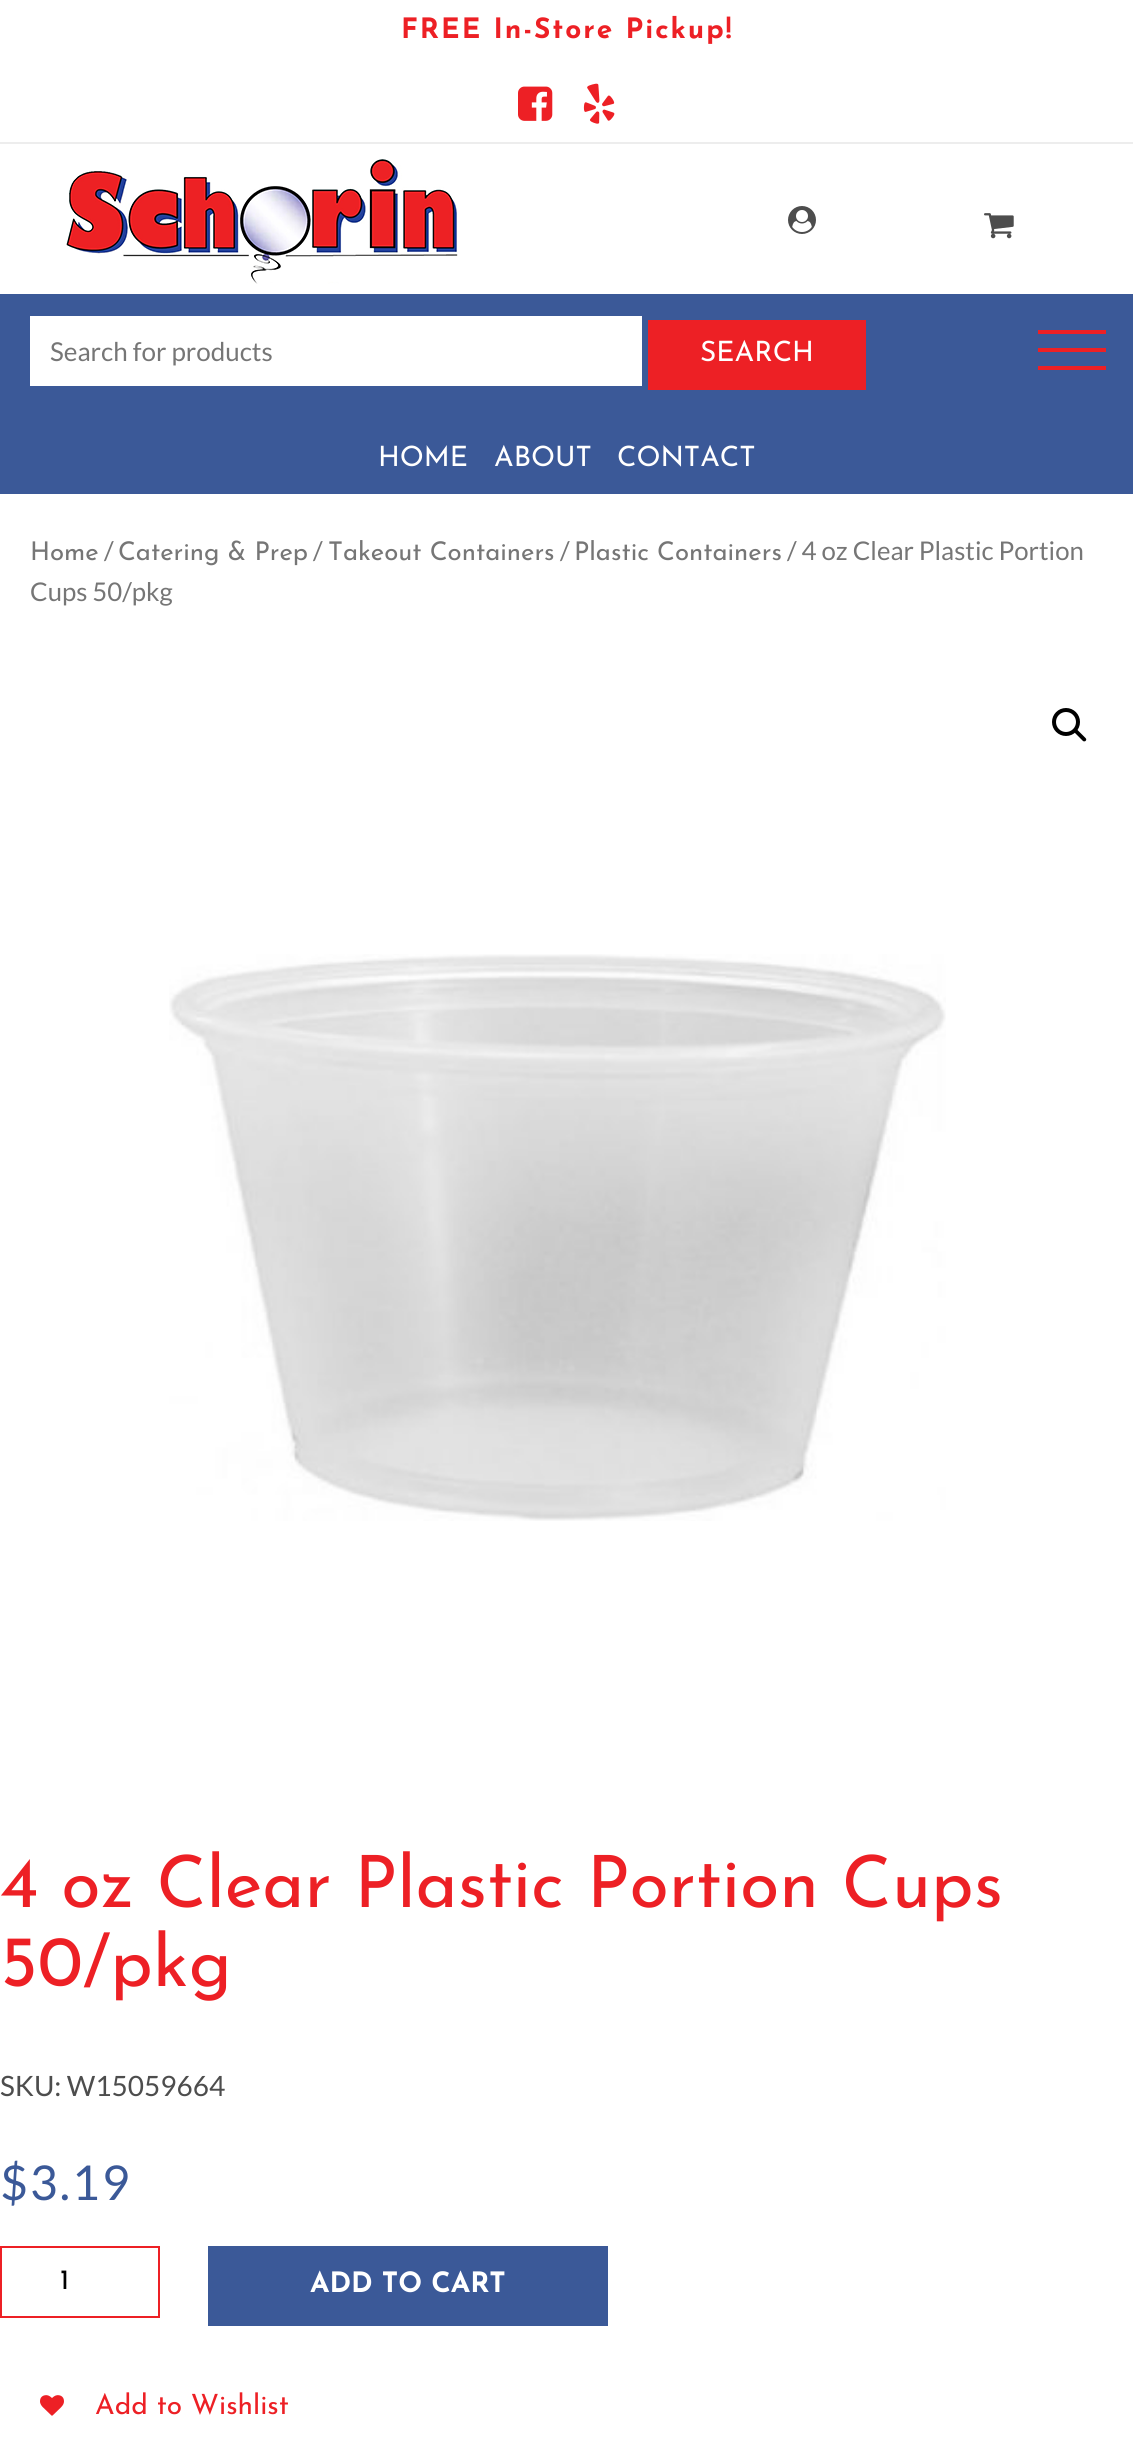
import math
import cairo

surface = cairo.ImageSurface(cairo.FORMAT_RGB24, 1133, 2437)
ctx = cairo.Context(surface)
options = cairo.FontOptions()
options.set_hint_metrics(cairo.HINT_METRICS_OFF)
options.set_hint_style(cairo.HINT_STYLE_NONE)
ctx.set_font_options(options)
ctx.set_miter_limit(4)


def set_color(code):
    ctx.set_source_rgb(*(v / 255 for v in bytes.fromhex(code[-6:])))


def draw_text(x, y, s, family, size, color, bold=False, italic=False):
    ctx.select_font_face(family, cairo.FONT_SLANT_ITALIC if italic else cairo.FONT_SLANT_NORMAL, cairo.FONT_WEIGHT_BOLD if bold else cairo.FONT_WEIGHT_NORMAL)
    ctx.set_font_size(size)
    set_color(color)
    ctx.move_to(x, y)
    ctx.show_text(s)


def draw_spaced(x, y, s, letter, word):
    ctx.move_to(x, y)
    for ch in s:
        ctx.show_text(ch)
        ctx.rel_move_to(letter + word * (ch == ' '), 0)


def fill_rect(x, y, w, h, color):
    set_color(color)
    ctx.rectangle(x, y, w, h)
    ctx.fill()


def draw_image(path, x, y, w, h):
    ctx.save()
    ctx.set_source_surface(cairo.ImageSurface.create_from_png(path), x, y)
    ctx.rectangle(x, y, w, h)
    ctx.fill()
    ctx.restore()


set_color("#ffffff")
ctx.paint()
fill_rect(0, 142, 1133, 2, "#ededed")
ctx.select_font_face("Josefin Sans", cairo.FONT_SLANT_NORMAL, cairo.FONT_WEIGHT_BOLD)
ctx.set_font_size(28)
set_color("#ed2025")
draw_spaced(401, 38, "FREE In-Store Pickup!", 2, 0)
draw_image("assets/img1.png", 518, 86, 35, 35)
draw_image("assets/img2.png", 583, 83, 32, 41)
draw_image("assets/img3.png", 66, 159, 392, 125)
draw_image("assets/img4.png", 788, 206, 28, 28)
draw_image("assets/img5.png", 984, 213, 30, 26)
fill_rect(0, 294, 1133, 200, "#3b5998")
fill_rect(30, 316, 612, 70, "#ffffff")
draw_text(50, 361, "Search for products", "Lato", 26, "#767676")
fill_rect(648, 320, 218, 70, "#ed2025")
draw_text(700, 361, "SEARCH", "Josefin Sans", 28, "#ffffff")
fill_rect(1038, 330, 68, 4, "#ed2025")
fill_rect(1038, 348, 68, 4, "#ed2025")
fill_rect(1038, 366, 68, 4, "#ed2025")
draw_text(378, 466, "HOME", "Josefin Sans", 28, "#ffffff")
draw_text(494, 466, "ABOUT", "Josefin Sans", 28, "#ffffff")
draw_text(617, 466, "CONTACT", "Josefin Sans", 28, "#ffffff")
draw_text(30, 560, "Home", "Josefin Sans", 25.75, "#767676")
draw_text(104, 560, "/", "Lato", 25.75, "#767676")
draw_text(118, 560, "Catering & Prep", "Josefin Sans", 25.75, "#767676")
draw_text(313, 560, "/", "Lato", 25.75, "#767676")
draw_text(328, 560, "Takeout Containers", "Josefin Sans", 25.75, "#767676")
draw_text(560, 560, "/", "Lato", 25.75, "#767676")
draw_text(574, 560, "Plastic Containers", "Josefin Sans", 25.75, "#767676")
draw_text(787, 560, "/ 4 oz Clear Plastic Portion", "Lato", 25.75, "#767676")
draw_text(30, 601, "Cups 50/pkg", "Lato", 25.75, "#767676")
ctx.new_path()
ctx.arc(1066, 722, 12, 0, 2 * math.pi)
set_color("#000000")
ctx.set_line_width(4)
ctx.stroke()
ctx.new_path()
ctx.move_to(1074.5, 729.5)
ctx.curve_to(1075, 729, 1076.5, 729, 1077, 729.5)
ctx.line_to(1085.5, 738)
ctx.curve_to(1086.5, 739, 1086.5, 740, 1085.5, 741)
ctx.curve_to(1085, 741.5, 1083.5, 741.5, 1083, 741)
ctx.line_to(1074.5, 732.5)
ctx.curve_to(1073.5, 731.5, 1073.5, 730.5, 1074.5, 729.5)
ctx.close_path()
ctx.fill()
draw_image("assets/img6.png", 169, 954, 777, 567)
draw_text(0, 1907, "4 oz Clear Plastic Portion Cups", "Josefin Sans", 72, "#ed2025")
draw_text(0, 1986, "50/pkg", "Josefin Sans", 72, "#ed2025")
draw_text(0, 2096, "SKU: W15059664", "Lato", 28, "#4d4d4d")
ctx.set_font_size(48)
set_color("#3b5998")
draw_spaced(0, 2200, "$3.19", 2, 0)
ctx.rectangle(1, 2247, 158, 70)
set_color("#ed2025")
ctx.set_line_width(2)
ctx.stroke()
draw_text(60, 2289, "1", "Josefin Sans", 28, "#000000")
fill_rect(208, 2246, 400, 80, "#3b5998")
draw_text(310, 2292, "ADD TO CART", "Josefin Sans", 28, "#ffffff", bold=True)
draw_image("assets/img7.png", 40, 2395, 24, 21)
draw_text(95, 2414, "Add to Wishlist", "Josefin Sans", 28, "#ed2025")
surface.write_to_png("output.png")
